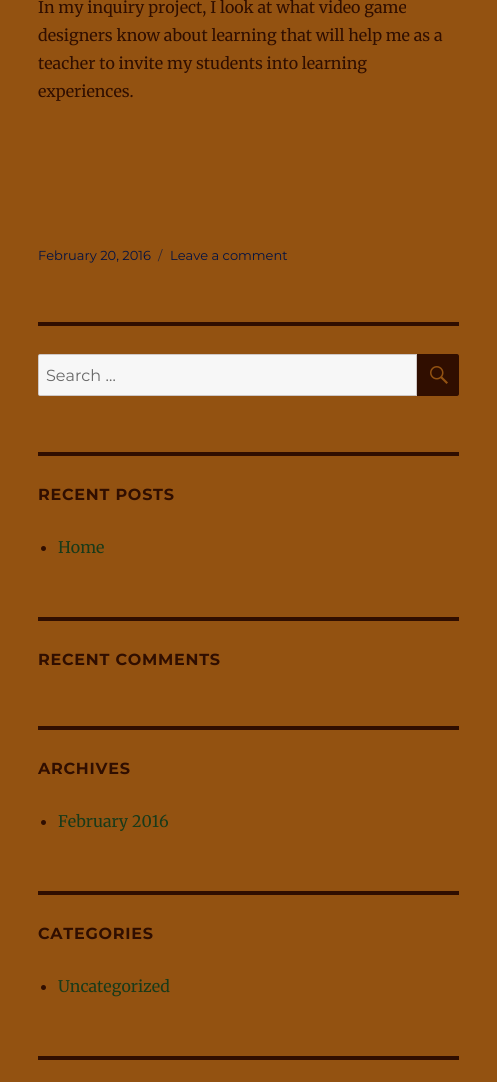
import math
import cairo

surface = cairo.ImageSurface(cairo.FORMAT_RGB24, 497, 1082)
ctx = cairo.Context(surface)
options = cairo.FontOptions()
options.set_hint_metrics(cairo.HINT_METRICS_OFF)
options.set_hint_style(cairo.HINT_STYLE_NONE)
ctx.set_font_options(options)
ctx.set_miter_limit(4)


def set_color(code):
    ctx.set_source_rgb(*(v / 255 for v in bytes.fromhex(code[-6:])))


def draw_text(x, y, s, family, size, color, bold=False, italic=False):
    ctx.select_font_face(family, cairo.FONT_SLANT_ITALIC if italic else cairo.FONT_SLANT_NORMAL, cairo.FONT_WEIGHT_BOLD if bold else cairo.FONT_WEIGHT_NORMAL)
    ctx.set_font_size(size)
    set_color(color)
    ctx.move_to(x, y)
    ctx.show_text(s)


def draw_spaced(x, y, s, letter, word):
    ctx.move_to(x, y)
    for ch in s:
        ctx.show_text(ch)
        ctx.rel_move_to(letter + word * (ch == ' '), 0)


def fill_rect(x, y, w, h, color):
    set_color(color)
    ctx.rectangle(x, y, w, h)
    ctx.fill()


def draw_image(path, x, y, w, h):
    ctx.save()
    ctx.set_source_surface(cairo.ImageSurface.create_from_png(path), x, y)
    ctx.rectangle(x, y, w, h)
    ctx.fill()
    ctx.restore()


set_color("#935211")
ctx.paint()
draw_text(38, 13, "In my inquiry project, I look at what video game", "Merriweather", 16, "#300e00")
draw_text(38, 41, "designers know about learning that will help me as a", "Merriweather", 16, "#300e00")
draw_text(38, 69, "teacher to invite my students into learning", "Merriweather", 16, "#300e00")
draw_text(38, 97, "experiences.", "Merriweather", 16, "#300e00")
draw_text(38, 260, "February 20, 2016", "Montserrat", 13, "#011142")
draw_text(158, 260, "/", "Montserrat", 13, "#2d2533")
draw_text(170, 260, "Leave a comment", "Montserrat", 13, "#011142")
fill_rect(38, 322, 421, 4, "#300e00")
set_color("#f7f7f7")
ctx.new_path()
ctx.move_to(40, 354)
ctx.line_to(417, 354)
ctx.line_to(417, 396)
ctx.line_to(40, 396)
ctx.curve_to(39, 396, 38, 395, 38, 394)
ctx.line_to(38, 356)
ctx.curve_to(38, 355, 39, 354, 40, 354)
ctx.close_path()
ctx.fill()
ctx.new_path()
ctx.move_to(40, 354.5)
ctx.line_to(416.5, 354.5)
ctx.line_to(416.5, 395.5)
ctx.line_to(40, 395.5)
ctx.curve_to(39, 395.5, 38.5, 395, 38.5, 394)
ctx.line_to(38.5, 356)
ctx.curve_to(38.5, 355, 39, 354.5, 40, 354.5)
ctx.close_path()
ctx.set_source_rgba(0.188, 0.055, 0, 0.2)
ctx.set_line_width(1)
ctx.stroke()
draw_text(46, 381, "Search …", "Montserrat", 16, "#686868")
set_color("#300e00")
ctx.new_path()
ctx.move_to(417, 354)
ctx.line_to(457, 354)
ctx.curve_to(458, 354, 459, 355, 459, 356)
ctx.line_to(459, 394)
ctx.curve_to(459, 395, 458, 396, 457, 396)
ctx.line_to(417, 396)
ctx.close_path()
ctx.fill()
draw_image("assets/img1.png", 430, 366, 18, 18)
fill_rect(38, 452, 421, 4, "#300e00")
ctx.select_font_face("Montserrat", cairo.FONT_SLANT_NORMAL, cairo.FONT_WEIGHT_BOLD)
draw_spaced(38, 500, "RECENT POSTS", 0.75, 0)
ctx.new_path()
ctx.arc(43.5, 548.5, 2.5, 0, 2 * math.pi)
ctx.fill()
draw_text(58, 553, "Home", "Merriweather", 16, "#193a19")
fill_rect(38, 617, 421, 4, "#300e00")
ctx.select_font_face("Montserrat", cairo.FONT_SLANT_NORMAL, cairo.FONT_WEIGHT_BOLD)
draw_spaced(38, 665, "RECENT COMMENTS", 0.75, 0)
fill_rect(38, 726, 421, 4, "#300e00")
draw_spaced(38, 774, "ARCHIVES", 0.75, 0)
ctx.new_path()
ctx.arc(43.5, 822.5, 2.5, 0, 2 * math.pi)
ctx.fill()
draw_text(58, 827, "February 2016", "Merriweather", 16, "#193a19")
fill_rect(38, 891, 421, 4, "#300e00")
ctx.select_font_face("Montserrat", cairo.FONT_SLANT_NORMAL, cairo.FONT_WEIGHT_BOLD)
draw_spaced(38, 939, "CATEGORIES", 0.75, 0)
ctx.new_path()
ctx.arc(43.5, 987.5, 2.5, 0, 2 * math.pi)
ctx.fill()
draw_text(58, 992, "Uncategorized", "Merriweather", 16, "#193a19")
fill_rect(38, 1056, 421, 4, "#300e00")
surface.write_to_png("output.png")
